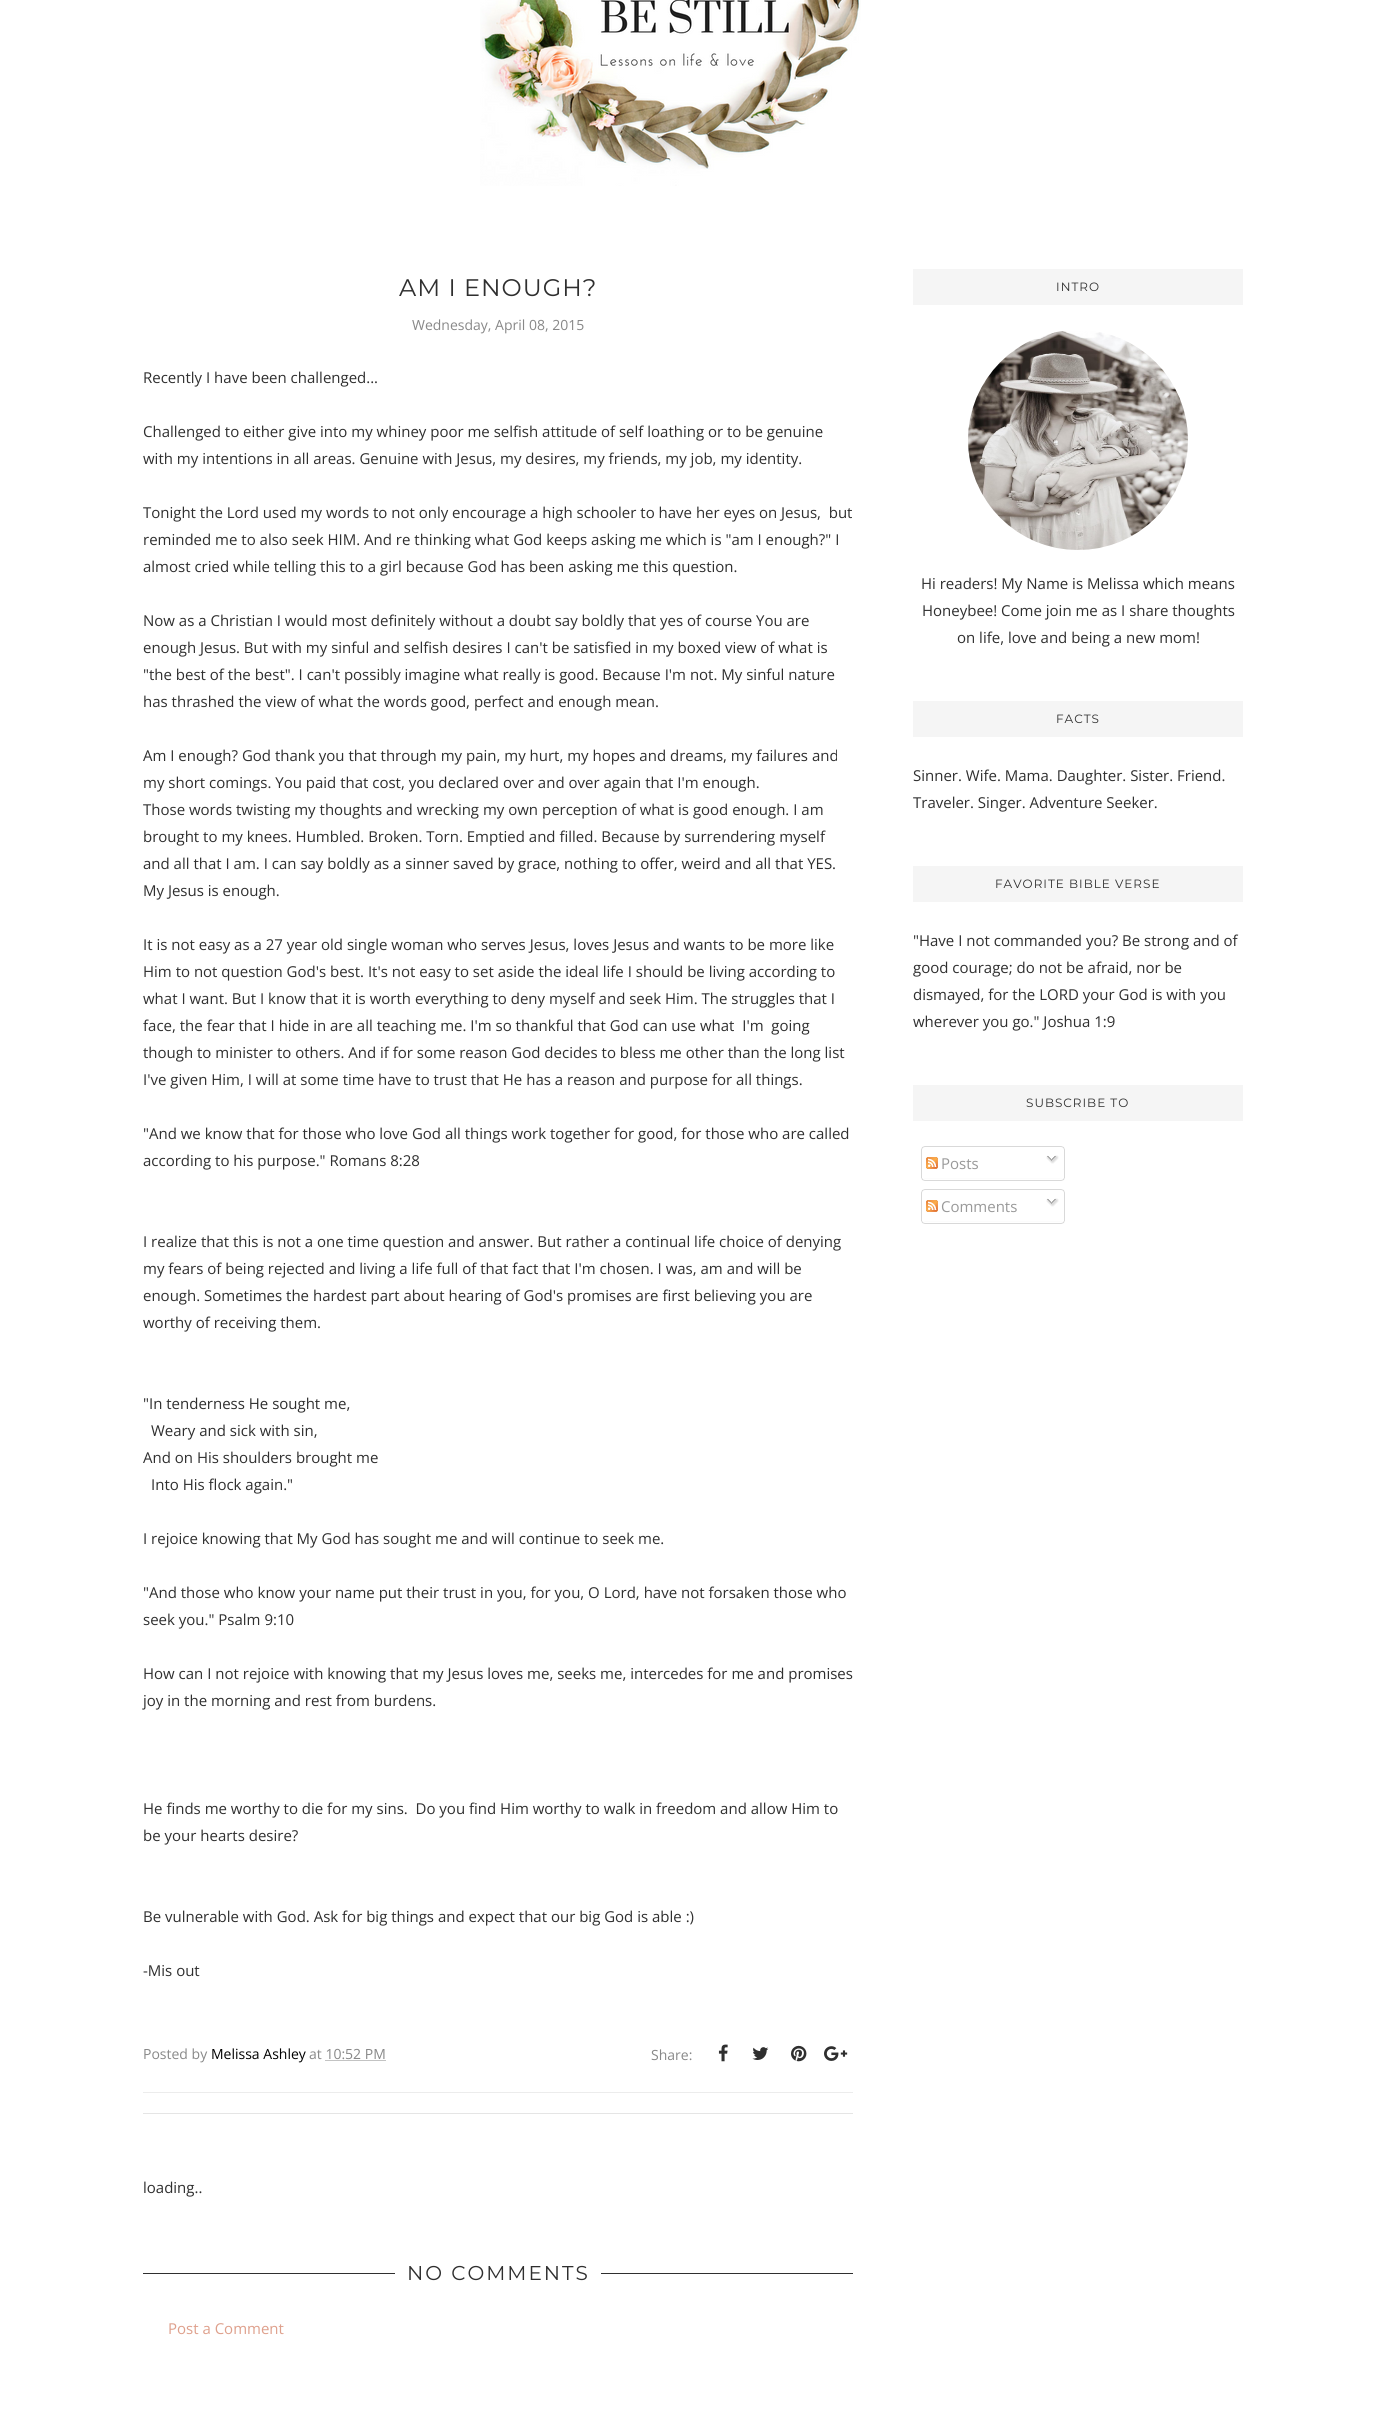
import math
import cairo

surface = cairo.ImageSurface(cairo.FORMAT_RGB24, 1386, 2428)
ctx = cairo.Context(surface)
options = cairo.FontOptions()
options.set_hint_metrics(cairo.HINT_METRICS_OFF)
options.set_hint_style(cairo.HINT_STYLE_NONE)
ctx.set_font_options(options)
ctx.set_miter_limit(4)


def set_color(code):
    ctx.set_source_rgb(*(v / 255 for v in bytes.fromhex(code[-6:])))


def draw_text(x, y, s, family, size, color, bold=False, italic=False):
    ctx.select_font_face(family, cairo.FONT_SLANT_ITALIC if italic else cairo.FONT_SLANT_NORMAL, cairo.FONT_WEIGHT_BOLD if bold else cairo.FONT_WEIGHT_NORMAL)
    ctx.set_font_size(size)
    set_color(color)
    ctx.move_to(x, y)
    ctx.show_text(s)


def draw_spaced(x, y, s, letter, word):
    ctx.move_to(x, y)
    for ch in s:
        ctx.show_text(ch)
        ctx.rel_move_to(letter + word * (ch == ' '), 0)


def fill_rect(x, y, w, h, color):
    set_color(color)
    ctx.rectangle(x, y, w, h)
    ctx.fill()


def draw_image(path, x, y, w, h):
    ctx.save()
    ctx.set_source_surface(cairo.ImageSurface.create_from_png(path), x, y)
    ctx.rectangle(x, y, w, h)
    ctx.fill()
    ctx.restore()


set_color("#ffffff")
ctx.paint()
draw_image("assets/img1.png", 480, 0, 381, 186)
ctx.select_font_face("Montserrat")
ctx.set_font_size(24)
set_color("#2f2f2f")
draw_spaced(399, 296, "AM I ENOUGH?", 1, 0)
draw_text(412, 330, "Wednesday, April 08, 2015", "Open Sans", 14, "#888888")
draw_text(143, 383, "Recently I have been challenged...", "Open Sans", 15, "#2f2f2f")
draw_text(143, 437, "Challenged to either give into my whiney poor me selfish attitude of self loathing or to be genuine", "Open Sans", 15, "#2f2f2f")
draw_text(143, 464, "with my intentions in all areas. Genuine with Jesus, my desires, my friends, my job, my identity.", "Open Sans", 15, "#2f2f2f")
draw_text(143, 518, "Tonight the Lord used my words to not only encourage a high schooler to have her eyes on Jesus,  but", "Open Sans", 15, "#2f2f2f")
draw_text(143, 545, "reminded me to also seek HIM. And re thinking what God keeps asking me which is \"am I enough?\" I", "Open Sans", 15, "#2f2f2f")
draw_text(143, 572, "almost cried while telling this to a girl because God has been asking me this question.", "Open Sans", 15, "#2f2f2f")
draw_text(143, 626, "Now as a Christian I would most definitely without a doubt say boldly that yes of course You are", "Open Sans", 15, "#2f2f2f")
draw_text(143, 653, "enough Jesus. But with my sinful and selfish desires I can't be satisfied in my boxed view of what is", "Open Sans", 15, "#2f2f2f")
draw_text(143, 680, "\"the best of the best\". I can't possibly imagine what really is good. Because I'm not. My sinful nature", "Open Sans", 15, "#2f2f2f")
draw_text(143, 707, "has thrashed the view of what the words good, perfect and enough mean.", "Open Sans", 15, "#2f2f2f")
draw_text(143, 761, "Am I enough? God thank you that through my pain, my hurt, my hopes and dreams, my failures and", "Open Sans", 15, "#2f2f2f")
draw_text(143, 788, "my short comings. You paid that cost, you declared over and over again that I'm enough.", "Open Sans", 15, "#2f2f2f")
draw_text(143, 815, "Those words twisting my thoughts and wrecking my own perception of what is good enough. I am", "Open Sans", 15, "#2f2f2f")
draw_text(143, 842, "brought to my knees. Humbled. Broken. Torn. Emptied and filled. Because by surrendering myself", "Open Sans", 15, "#2f2f2f")
draw_text(143, 869, "and all that I am. I can say boldly as a sinner saved by grace, nothing to offer, weird and all that YES.", "Open Sans", 15, "#2f2f2f")
draw_text(143, 896, "My Jesus is enough.", "Open Sans", 15, "#2f2f2f")
draw_text(143, 950, "It is not easy as a 27 year old single woman who serves Jesus, loves Jesus and wants to be more like", "Open Sans", 15, "#2f2f2f")
draw_text(143, 977, "Him to not question God's best. It's not easy to set aside the ideal life I should be living according to", "Open Sans", 15, "#2f2f2f")
draw_text(143, 1004, "what I want. But I know that it is worth everything to deny myself and seek Him. The struggles that I", "Open Sans", 15, "#2f2f2f")
draw_text(143, 1031, "face, the fear that I hide in are all teaching me. I'm so thankful that God can use what  I'm  going", "Open Sans", 15, "#2f2f2f")
draw_text(143, 1058, "though to minister to others. And if for some reason God decides to bless me other than the long list", "Open Sans", 15, "#2f2f2f")
draw_text(143, 1085, "I've given Him, I will at some time have to trust that He has a reason and purpose for all things.", "Open Sans", 15, "#2f2f2f")
draw_text(143, 1139, "\"And we know that for those who love God all things work together for good, for those who are called", "Open Sans", 15, "#2f2f2f")
draw_text(143, 1166, "according to his purpose.\" Romans 8:28", "Open Sans", 15, "#2f2f2f")
draw_text(143, 1247, "I realize that this is not a one time question and answer. But rather a continual life choice of denying", "Open Sans", 15, "#2f2f2f")
draw_text(143, 1274, "my fears of being rejected and living a life full of that fact that I'm chosen. I was, am and will be", "Open Sans", 15, "#2f2f2f")
draw_text(143, 1301, "enough. Sometimes the hardest part about hearing of God's promises are first believing you are", "Open Sans", 15, "#2f2f2f")
draw_text(143, 1328, "worthy of receiving them.", "Open Sans", 15, "#2f2f2f")
draw_text(143, 1409, "\"In tenderness He sought me,", "Open Sans", 15, "#2f2f2f")
draw_text(151, 1436, "Weary and sick with sin,", "Open Sans", 15, "#2f2f2f")
draw_text(143, 1463, "And on His shoulders brought me", "Open Sans", 15, "#2f2f2f")
draw_text(151, 1490, "Into His flock again.\"", "Open Sans", 15, "#2f2f2f")
draw_text(143, 1544, "I rejoice knowing that My God has sought me and will continue to seek me.", "Open Sans", 15, "#2f2f2f")
draw_text(143, 1598, "\"And those who know your name put their trust in you, for you, O Lord, have not forsaken those who", "Open Sans", 15, "#2f2f2f")
draw_text(143, 1625, "seek you.\" Psalm 9:10", "Open Sans", 15, "#2f2f2f")
draw_text(143, 1679, "How can I not rejoice with knowing that my Jesus loves me, seeks me, intercedes for me and promises", "Open Sans", 15, "#2f2f2f")
draw_text(143, 1706, "joy in the morning and rest from burdens.", "Open Sans", 15, "#2f2f2f")
draw_text(143, 1814, "He finds me worthy to die for my sins.  Do you find Him worthy to walk in freedom and allow Him to", "Open Sans", 15, "#2f2f2f")
draw_text(143, 1841, "be your hearts desire?", "Open Sans", 15, "#2f2f2f")
draw_text(143, 1922, "Be vulnerable with God. Ask for big things and expect that our big God is able :)", "Open Sans", 15, "#2f2f2f")
draw_text(143, 1976, "-Mis out", "Open Sans", 15, "#2f2f2f")
draw_text(143, 2059, "Posted by", "Open Sans", 14, "#888888")
draw_text(211, 2059, "Melissa Ashley", "Open Sans", 14, "#000000")
draw_text(309, 2059, "at 10:52 PM", "Open Sans", 14, "#888888")
ctx.new_path()
ctx.move_to(325.5, 2060.5)
ctx.line_to(386, 2060.5)
ctx.set_line_width(1)
ctx.set_dash([1, 1])
ctx.stroke()
draw_text(651, 2060, "Share:", "Open Sans", 14, "#888888")
draw_image("assets/img2.png", 718, 2044, 10, 18)
draw_image("assets/img3.png", 752, 2047, 17, 13)
draw_image("assets/img4.png", 791, 2045, 16, 17)
draw_image("assets/img5.png", 824, 2046, 24, 15)
fill_rect(143, 2092, 710, 1, "#ececec")
fill_rect(143, 2113, 710, 1, "#e5e5e5")
draw_text(143, 2193, "loading..", "Open Sans", 15, "#2f2f2f")
fill_rect(143, 2273, 710, 1, "#2f2f2f")
fill_rect(395, 2273, 206, 1, "#ffffff")
ctx.select_font_face("Montserrat")
ctx.set_font_size(20)
set_color("#2f2f2f")
draw_spaced(407, 2280, "NO COMMENTS", 2, 0)
draw_text(168, 2334, "Post a Comment", "Open Sans", 15, "#dea08c")
fill_rect(913, 269, 330, 36, "#f5f5f5")
ctx.select_font_face("Montserrat")
ctx.set_font_size(12)
set_color("#2f2f2f")
draw_spaced(1056, 291, "INTRO", 1, 0)
draw_image("assets/img6.png", 968, 331, 220, 219)
draw_text(921, 589, "Hi readers! My Name is Melissa which means", "Open Sans", 15, "#2f2f2f")
draw_text(922, 616, "Honeybee! Come join me as I share thoughts", "Open Sans", 15, "#2f2f2f")
draw_text(957, 643, "on life, love and being a new mom!", "Open Sans", 15, "#2f2f2f")
fill_rect(913, 701, 330, 36, "#f5f5f5")
ctx.select_font_face("Montserrat")
ctx.set_font_size(12)
set_color("#2f2f2f")
draw_spaced(1056, 723, "FACTS", 1, 0)
draw_text(913, 781, "Sinner. Wife. Mama. Daughter. Sister. Friend.", "Open Sans", 15, "#2f2f2f")
draw_text(913, 808, "Traveler. Singer. Adventure Seeker.", "Open Sans", 15, "#2f2f2f")
fill_rect(913, 866, 330, 36, "#f5f5f5")
ctx.select_font_face("Montserrat")
ctx.set_font_size(12)
set_color("#2f2f2f")
draw_spaced(995, 888, "FAVORITE BIBLE VERSE", 1, 0)
draw_text(913, 946, "\"Have I not commanded you? Be strong and of", "Open Sans", 15, "#2f2f2f")
draw_text(913, 973, "good courage; do not be afraid, nor be", "Open Sans", 15, "#2f2f2f")
draw_text(913, 1000, "dismayed, for the LORD your God is with you", "Open Sans", 15, "#2f2f2f")
draw_text(913, 1027, "wherever you go.\" Joshua 1:9", "Open Sans", 15, "#2f2f2f")
fill_rect(913, 1085, 330, 36, "#f5f5f5")
ctx.select_font_face("Montserrat")
ctx.set_font_size(12)
set_color("#2f2f2f")
draw_spaced(1026, 1107, "SUBSCRIBE TO", 1, 0)
draw_image("assets/img7.png", 921, 1146, 144, 32)
draw_image("assets/img8.png", 926, 1157, 12, 12)
draw_text(941, 1169, "Posts", "Open Sans", 15, "#999999")
draw_image("assets/img9.png", 1046, 1155, 13, 9)
draw_image("assets/img10.png", 921, 1178, 144, 3)
draw_image("assets/img7.png", 921, 1189, 144, 32)
draw_image("assets/img8.png", 926, 1200, 12, 12)
draw_text(941, 1212, "Comments", "Open Sans", 15, "#999999")
draw_image("assets/img9.png", 1046, 1198, 13, 9)
draw_image("assets/img10.png", 921, 1221, 144, 3)
surface.write_to_png("output.png")
